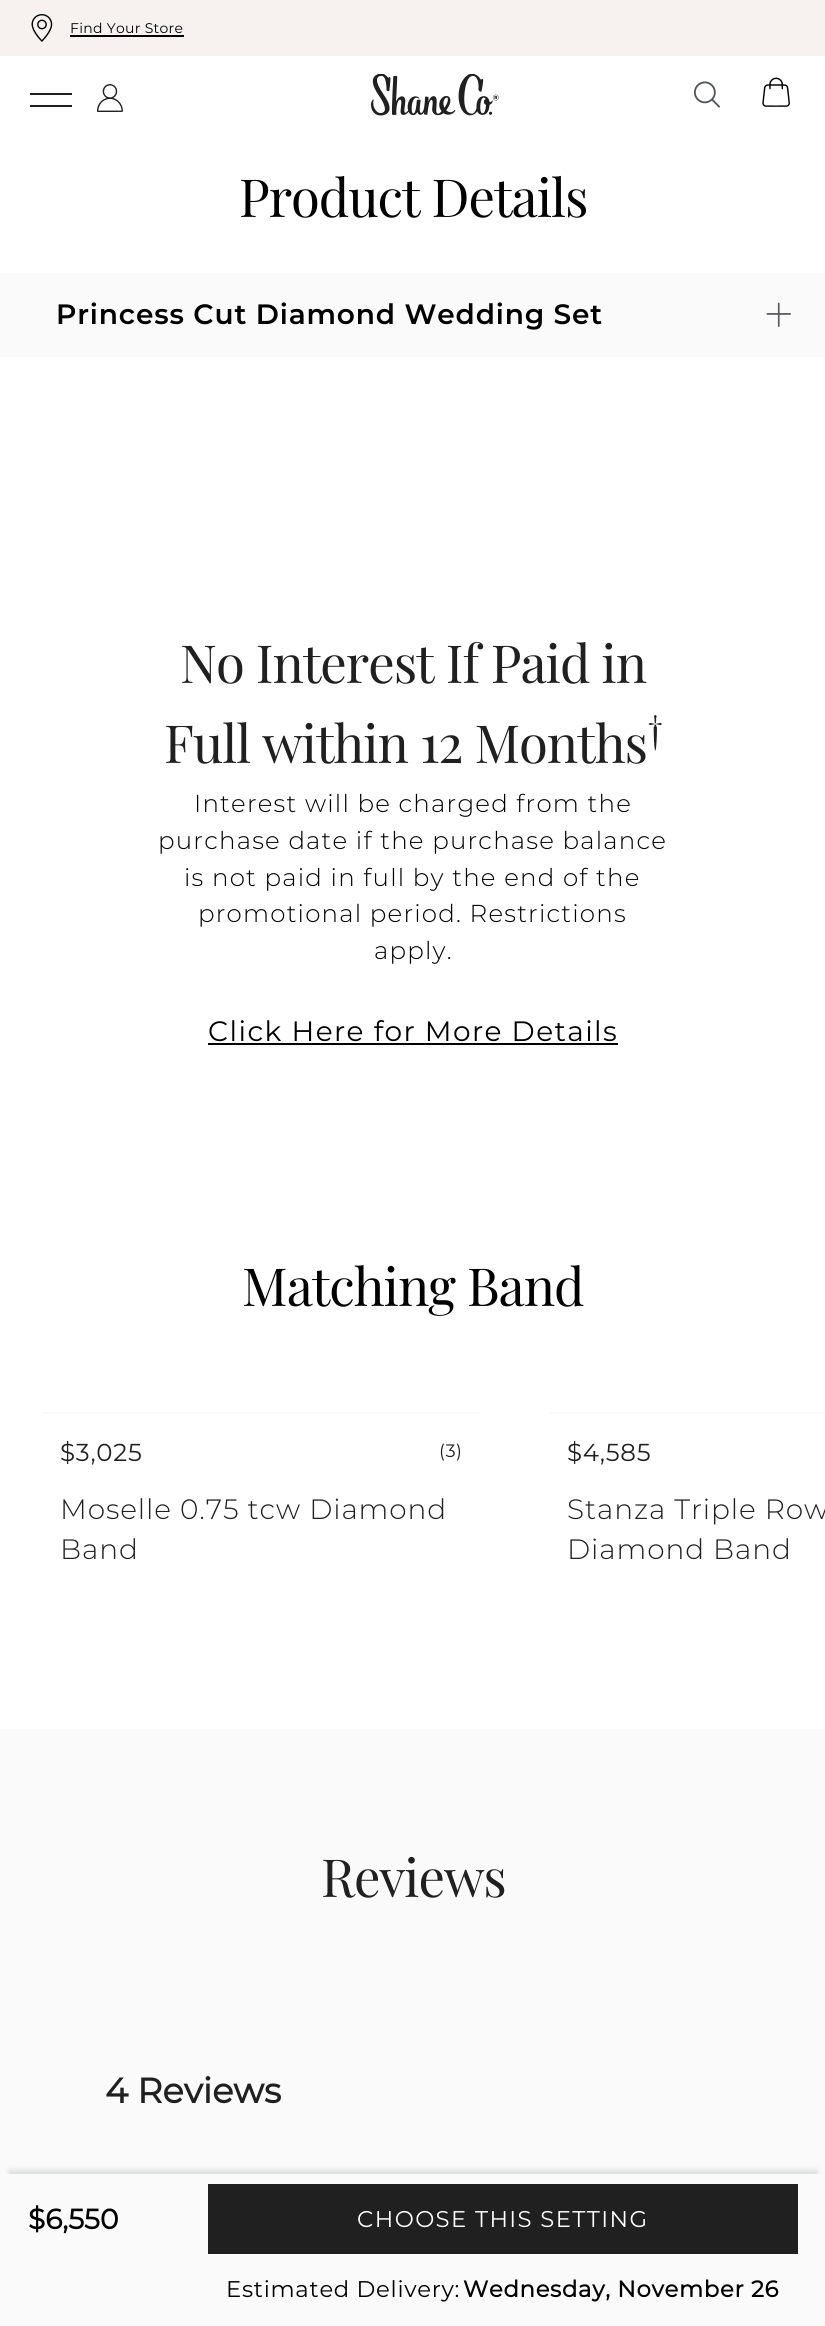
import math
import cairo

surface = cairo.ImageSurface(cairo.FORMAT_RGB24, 825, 2326)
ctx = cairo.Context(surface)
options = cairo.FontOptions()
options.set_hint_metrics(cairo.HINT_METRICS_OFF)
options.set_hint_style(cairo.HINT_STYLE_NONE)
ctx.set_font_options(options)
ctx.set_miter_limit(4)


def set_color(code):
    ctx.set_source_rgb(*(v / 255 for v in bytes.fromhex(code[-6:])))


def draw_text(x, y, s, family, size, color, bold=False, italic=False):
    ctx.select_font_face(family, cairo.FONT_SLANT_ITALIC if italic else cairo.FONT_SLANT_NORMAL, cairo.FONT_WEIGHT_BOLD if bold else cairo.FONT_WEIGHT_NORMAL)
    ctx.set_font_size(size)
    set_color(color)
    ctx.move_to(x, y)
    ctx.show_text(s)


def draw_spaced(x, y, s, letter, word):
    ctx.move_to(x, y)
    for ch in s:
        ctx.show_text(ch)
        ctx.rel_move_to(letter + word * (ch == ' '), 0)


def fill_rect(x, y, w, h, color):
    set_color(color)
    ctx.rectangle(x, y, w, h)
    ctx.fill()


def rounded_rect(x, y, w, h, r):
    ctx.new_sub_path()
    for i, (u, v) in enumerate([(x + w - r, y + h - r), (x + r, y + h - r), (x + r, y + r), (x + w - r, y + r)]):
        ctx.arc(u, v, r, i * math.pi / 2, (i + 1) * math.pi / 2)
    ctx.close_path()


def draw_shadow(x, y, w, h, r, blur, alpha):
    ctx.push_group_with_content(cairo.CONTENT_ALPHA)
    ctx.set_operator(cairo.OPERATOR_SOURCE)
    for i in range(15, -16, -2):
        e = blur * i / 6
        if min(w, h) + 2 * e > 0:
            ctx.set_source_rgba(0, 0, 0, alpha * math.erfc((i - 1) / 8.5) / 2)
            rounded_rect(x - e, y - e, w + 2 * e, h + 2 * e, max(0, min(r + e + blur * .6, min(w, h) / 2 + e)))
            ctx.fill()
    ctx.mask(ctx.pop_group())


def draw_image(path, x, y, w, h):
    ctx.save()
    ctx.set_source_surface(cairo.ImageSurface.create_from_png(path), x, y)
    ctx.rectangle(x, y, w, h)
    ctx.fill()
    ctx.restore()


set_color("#ffffff")
ctx.paint()
fill_rect(0, 0, 825, 56, "#f7f2ef")
draw_image("assets/img1.png", 31, 14, 22, 28)
ctx.select_font_face("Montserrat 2")
ctx.set_font_size(14)
set_color("#000000")
draw_spaced(70, 33, "Find Your Store", 0.3, 0)
fill_rect(70, 35, 114, 2, "#000000")
fill_rect(30, 93, 42, 2, "#202020")
fill_rect(30, 105, 42, 2, "#202020")
draw_image("assets/img2.png", 96, 84, 27, 28)
draw_image("assets/img3.png", 371, 74, 128, 42)
draw_image("assets/img4.png", 693, 81, 28, 27)
draw_image("assets/img5.png", 762, 77, 28, 30)
ctx.select_font_face("Playfair Display")
ctx.set_font_size(52.5)
set_color("#000000")
draw_spaced(239, 217, "Product Details", -1.05, 0)
fill_rect(0, 273, 825, 84, "#fafafa")
ctx.select_font_face("Montserrat SemiBold")
ctx.set_font_size(28)
set_color("#000000")
draw_spaced(56, 324, "Princess Cut Diamond Wedding Set", 0.85, 0)
draw_image("assets/img6.png", 766, 302, 25, 25)
ctx.select_font_face("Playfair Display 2")
ctx.set_font_size(52.5)
set_color("#202020")
draw_spaced(180, 683, "No Interest If Paid in", -1.05, 0)
draw_spaced(164, 763, "Full within 12 Months", -1.05, 0)
ctx.set_font_size(44)
draw_spaced(647, 744, "†", -1.05, 0)
ctx.select_font_face("Montserrat Light")
ctx.set_font_size(24.5)
set_color("#000000")
draw_spaced(194, 812, "Interest will be charged from the", 1.2, 0)
draw_spaced(158, 849, "purchase date if the purchase balance", 1.2, 0)
draw_spaced(184, 886, "is not paid in full by the end of the", 1.2, 0)
draw_spaced(198, 922, "promotional period. Restrictions", 1.2, 0)
draw_spaced(374, 959, "apply.", 1.2, 0)
ctx.select_font_face("Montserrat")
ctx.set_font_size(28)
draw_spaced(208, 1041, "Click Here for More Details", 1.4, 0)
fill_rect(208, 1043, 410, 2, "#000000")
ctx.select_font_face("Playfair Display")
ctx.set_font_size(52.5)
draw_spaced(242, 1306, "Matching Band", -1.05, 0)
fill_rect(42, 1412, 438, 2, "#fafafa")
ctx.select_font_face("Montserrat 2")
ctx.set_font_size(24.5)
set_color("#202020")
draw_spaced(60, 1461, "$3,025", 0.75, 0)
ctx.set_font_size(18)
draw_spaced(439, 1457, "(3)", 0.5, 0)
ctx.select_font_face("Montserrat 2 Light")
ctx.set_font_size(28)
draw_spaced(60, 1519, "Moselle 0.75 tcw Diamond", 0.9, 0)
draw_spaced(60, 1559, "Band", 0.9, 0)
fill_rect(550, 1412, 275, 2, "#fafafa")
ctx.select_font_face("Montserrat 2")
ctx.set_font_size(24.5)
set_color("#202020")
draw_spaced(567, 1461, "$4,585", 0.75, 0)
ctx.select_font_face("Montserrat 2 Light")
ctx.set_font_size(28)
draw_spaced(567, 1519, "Stanza Triple Row", 0.9, 0)
draw_spaced(567, 1559, "Diamond Band", 0.9, 0)
fill_rect(0, 1729, 825, 445, "#fbfafa")
ctx.select_font_face("Playfair Display")
ctx.set_font_size(52.5)
set_color("#202020")
draw_spaced(321, 1897, "Reviews", -1.05, 0)
draw_text(105, 2103, "4 Reviews", "Montserrat", 35, "#202020", bold=True)
set_color("#dddedf")
draw_shadow(9, 2170, 808, 137, 0, 2.5, 1)
fill_rect(0, 2174, 825, 152, "#fafafa")
draw_text(28, 2229, "$6,550", "Montserrat", 28, "#000000", bold=True)
fill_rect(208, 2184, 590, 70, "#202020")
ctx.select_font_face("Montserrat 2")
ctx.set_font_size(22.75)
set_color("#ffffff")
draw_spaced(357, 2227, "CHOOSE THIS SETTING", 1.4, 0)
set_color("#000000")
draw_spaced(226, 2297, "Estimated Delivery:", 0.7, 0)
ctx.select_font_face("Montserrat", cairo.FONT_SLANT_NORMAL, cairo.FONT_WEIGHT_BOLD)
draw_spaced(463, 2297, "Wednesday, November 26", 0.7, 0)
surface.write_to_png("output.png")
